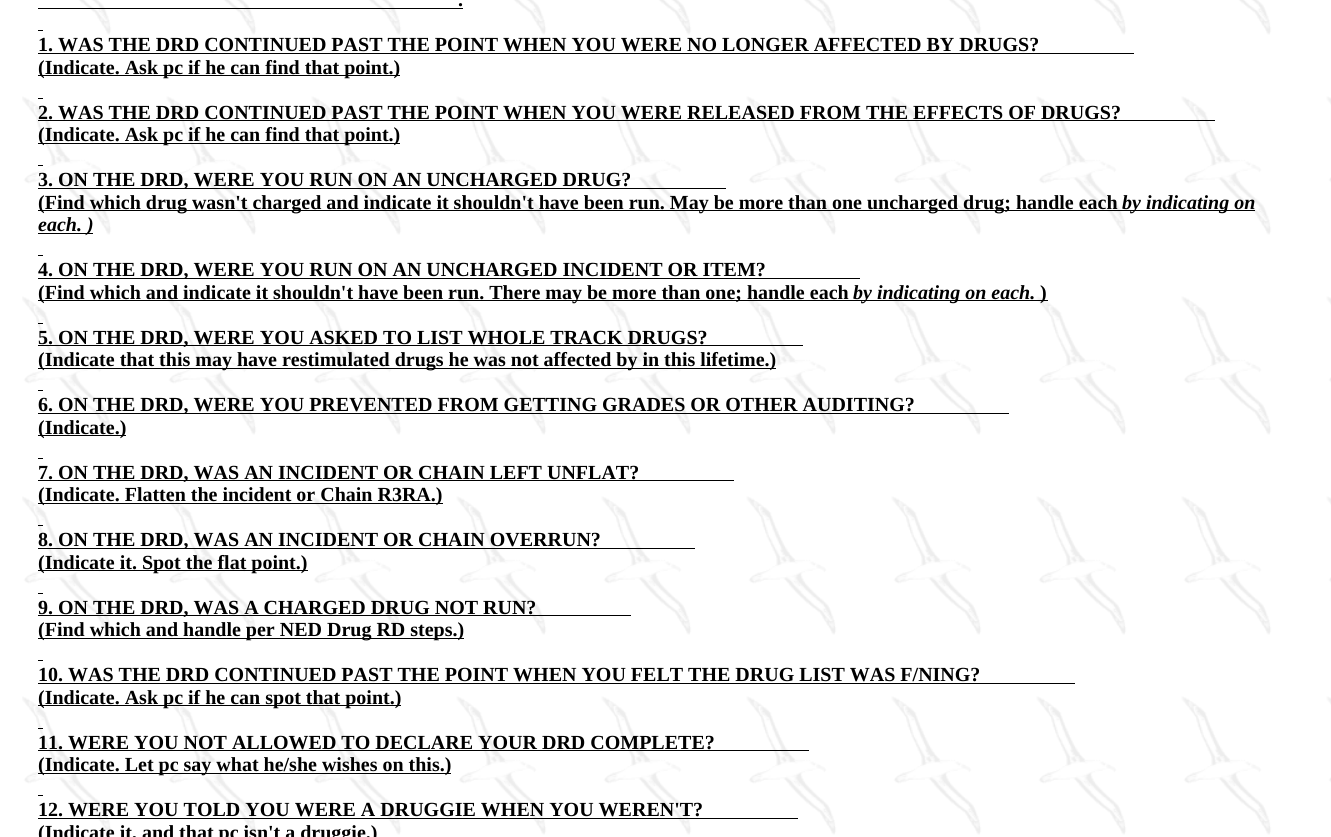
import math
import cairo

surface = cairo.ImageSurface(cairo.FORMAT_RGB24, 1331, 837)
ctx = cairo.Context(surface)
options = cairo.FontOptions()
options.set_hint_metrics(cairo.HINT_METRICS_OFF)
options.set_hint_style(cairo.HINT_STYLE_NONE)
ctx.set_font_options(options)
ctx.set_miter_limit(4)


def set_color(code):
    ctx.set_source_rgb(*(v / 255 for v in bytes.fromhex(code[-6:])))


def draw_text(x, y, s, family, size, color, bold=False, italic=False):
    ctx.select_font_face(family, cairo.FONT_SLANT_ITALIC if italic else cairo.FONT_SLANT_NORMAL, cairo.FONT_WEIGHT_BOLD if bold else cairo.FONT_WEIGHT_NORMAL)
    ctx.set_font_size(size)
    set_color(color)
    ctx.move_to(x, y)
    ctx.show_text(s)


def fill_rect(x, y, w, h, color):
    set_color(color)
    ctx.rectangle(x, y, w, h)
    ctx.fill()


def draw_image(path, x, y, w, h):
    ctx.save()
    ctx.set_source_surface(cairo.ImageSurface.create_from_png(path), x, y)
    ctx.rectangle(x, y, w, h)
    ctx.fill()
    ctx.restore()


set_color("#ffffff")
ctx.paint()
draw_image("assets/img1.png", 22, 0, 1309, 835)
draw_text(458, 6, ".", "Liberation Serif", 20, "#000000", bold=True)
fill_rect(38, 8, 425, 1, "#000000")
draw_text(38, 51, "1. WAS THE DRD CONTINUED PAST THE POINT WHEN YOU WERE NO LONGER AFFECTED BY DRUGS?", "Liberation Serif", 20, "#000000", bold=True)
fill_rect(38, 30, 5, 1, "#000000")
fill_rect(38, 53, 1096, 1, "#000000")
fill_rect(38, 75, 362, 1, "#000000")
draw_text(38, 74, "(Indicate. Ask pc if he can find that point.)", "Liberation Serif", 20, "#000000", bold=True)
draw_text(38, 119, "2. WAS THE DRD CONTINUED PAST THE POINT WHEN YOU WERE RELEASED FROM THE EFFECTS OF DRUGS?", "Liberation Serif", 20, "#000000", bold=True)
fill_rect(38, 98, 5, 1, "#000000")
fill_rect(38, 120, 1177, 1, "#000000")
fill_rect(38, 143, 362, 1, "#000000")
draw_text(38, 141, "(Indicate. Ask pc if he can find that point.)", "Liberation Serif", 20, "#000000", bold=True)
fill_rect(38, 188, 688, 1, "#000000")
draw_text(38, 186, "3. ON THE DRD, WERE YOU RUN ON AN UNCHARGED DRUG?", "Liberation Serif", 20, "#000000", bold=True)
fill_rect(38, 165, 5, 1, "#000000")
fill_rect(38, 210, 1217, 1, "#000000")
draw_text(38, 209, "(Find which drug wasn't charged and indicate it shouldn't have been run. May be more than one uncharged drug; handle each", "Liberation Serif", 20, "#000000", bold=True)
draw_text(1122, 209, "by indicating on", "Liberation Serif", 20, "#000000", bold=True, italic=True)
fill_rect(38, 233, 55, 1, "#000000")
draw_text(38, 231, "each. )", "Liberation Serif", 20, "#000000", bold=True, italic=True)
fill_rect(38, 278, 822, 1, "#000000")
draw_text(38, 276, "4. ON THE DRD, WERE YOU RUN ON AN UNCHARGED INCIDENT OR ITEM?", "Liberation Serif", 20, "#000000", bold=True)
fill_rect(38, 255, 5, 1, "#000000")
fill_rect(38, 300, 1010, 1, "#000000")
draw_text(38, 299, "(Find which and indicate it shouldn't have been run. There may be more than one; handle each", "Liberation Serif", 20, "#000000", bold=True)
draw_text(853, 299, "by indicating on each.", "Liberation Serif", 20, "#000000", bold=True, italic=True)
draw_text(1040, 299, ")", "Liberation Serif", 20, "#000000", bold=True)
fill_rect(38, 345, 765, 1, "#000000")
draw_text(38, 344, "5. ON THE DRD, WERE YOU ASKED TO LIST WHOLE TRACK DRUGS?", "Liberation Serif", 20, "#000000", bold=True)
fill_rect(38, 323, 5, 1, "#000000")
fill_rect(38, 368, 738, 1, "#000000")
draw_text(38, 366, "(Indicate that this may have restimulated drugs he was not affected by in this lifetime.)", "Liberation Serif", 20, "#000000", bold=True)
fill_rect(38, 413, 971, 1, "#000000")
draw_text(38, 411, "6. ON THE DRD, WERE YOU PREVENTED FROM GETTING GRADES OR OTHER AUDITING?", "Liberation Serif", 20, "#000000", bold=True)
fill_rect(38, 390, 5, 1, "#000000")
fill_rect(38, 435, 88, 1, "#000000")
draw_text(38, 434, "(Indicate.)", "Liberation Serif", 20, "#000000", bold=True)
fill_rect(38, 480, 696, 1, "#000000")
draw_text(38, 479, "7. ON THE DRD, WAS AN INCIDENT OR CHAIN LEFT UNFLAT?", "Liberation Serif", 20, "#000000", bold=True)
fill_rect(38, 458, 5, 1, "#000000")
fill_rect(38, 503, 405, 1, "#000000")
draw_text(38, 501, "(Indicate. Flatten the incident or Chain R3RA.)", "Liberation Serif", 20, "#000000", bold=True)
fill_rect(38, 548, 657, 1, "#000000")
draw_text(38, 546, "8. ON THE DRD, WAS AN INCIDENT OR CHAIN OVERRUN?", "Liberation Serif", 20, "#000000", bold=True)
fill_rect(38, 525, 5, 1, "#000000")
fill_rect(38, 570, 270, 1, "#000000")
draw_text(38, 569, "(Indicate it. Spot the flat point.)", "Liberation Serif", 20, "#000000", bold=True)
fill_rect(38, 615, 593, 1, "#000000")
draw_text(38, 614, "9. ON THE DRD, WAS A CHARGED DRUG NOT RUN?", "Liberation Serif", 20, "#000000", bold=True)
fill_rect(38, 593, 5, 1, "#000000")
fill_rect(38, 638, 426, 1, "#000000")
draw_text(38, 636, "(Find which and handle per NED Drug RD steps.)", "Liberation Serif", 20, "#000000", bold=True)
draw_text(38, 681, "10. WAS THE DRD CONTINUED PAST THE POINT WHEN YOU FELT THE DRUG LIST WAS F/NING?", "Liberation Serif", 20, "#000000", bold=True)
fill_rect(38, 660, 5, 1, "#000000")
fill_rect(38, 683, 1037, 1, "#000000")
fill_rect(38, 705, 363, 1, "#000000")
draw_text(38, 704, "(Indicate. Ask pc if he can spot that point.)", "Liberation Serif", 20, "#000000", bold=True)
draw_text(38, 749, "11. WERE YOU NOT ALLOWED TO DECLARE YOUR DRD COMPLETE?", "Liberation Serif", 20, "#000000", bold=True)
fill_rect(38, 728, 5, 1, "#000000")
fill_rect(38, 750, 771, 1, "#000000")
fill_rect(38, 773, 413, 1, "#000000")
draw_text(38, 771, "(Indicate. Let pc say what he/she wishes on this.)", "Liberation Serif", 20, "#000000", bold=True)
draw_text(38, 816, "12. WERE YOU TOLD YOU WERE A DRUGGIE WHEN YOU WEREN'T?", "Liberation Serif", 20, "#000000", bold=True)
fill_rect(38, 795, 5, 1, "#000000")
fill_rect(38, 818, 760, 1, "#000000")
draw_text(38, 839, "(Indicate it, and that pc isn't a druggie.)", "Liberation Serif", 20, "#000000", bold=True)
surface.write_to_png("output.png")
